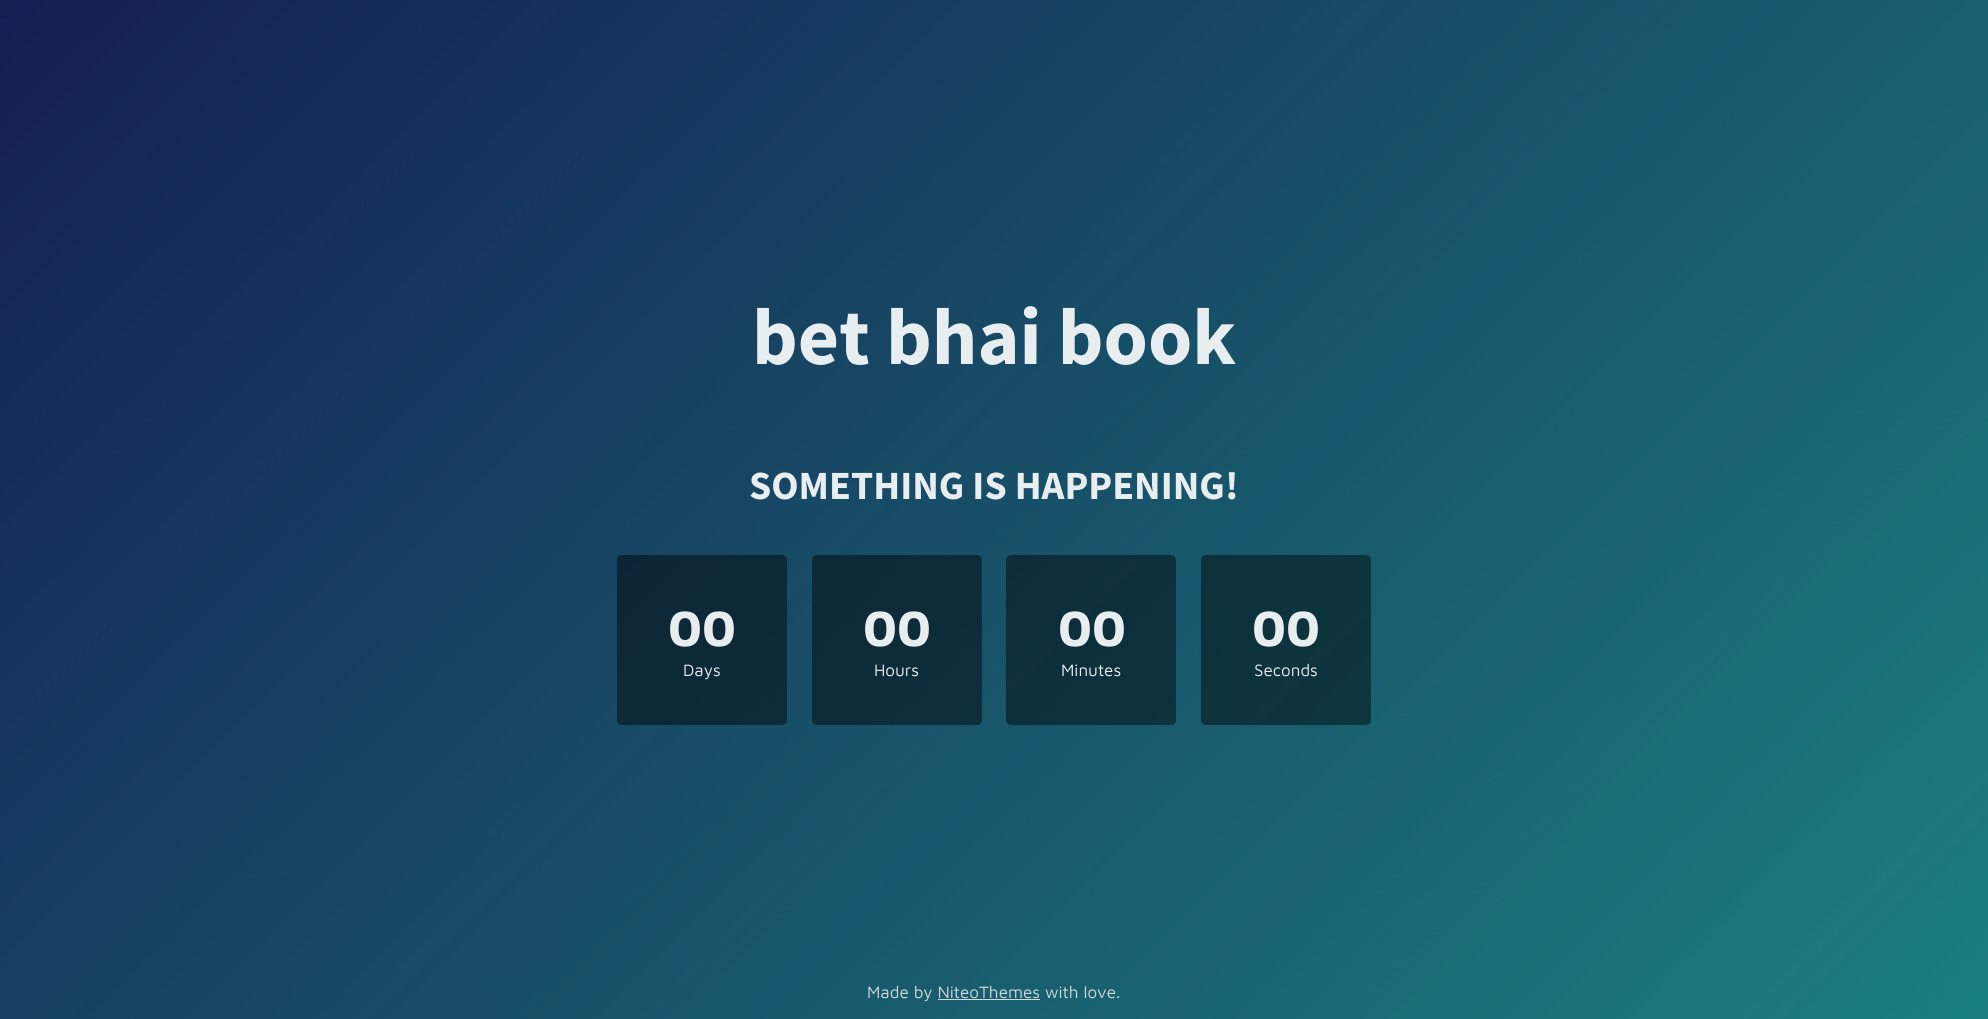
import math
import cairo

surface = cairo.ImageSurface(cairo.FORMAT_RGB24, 1988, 1019)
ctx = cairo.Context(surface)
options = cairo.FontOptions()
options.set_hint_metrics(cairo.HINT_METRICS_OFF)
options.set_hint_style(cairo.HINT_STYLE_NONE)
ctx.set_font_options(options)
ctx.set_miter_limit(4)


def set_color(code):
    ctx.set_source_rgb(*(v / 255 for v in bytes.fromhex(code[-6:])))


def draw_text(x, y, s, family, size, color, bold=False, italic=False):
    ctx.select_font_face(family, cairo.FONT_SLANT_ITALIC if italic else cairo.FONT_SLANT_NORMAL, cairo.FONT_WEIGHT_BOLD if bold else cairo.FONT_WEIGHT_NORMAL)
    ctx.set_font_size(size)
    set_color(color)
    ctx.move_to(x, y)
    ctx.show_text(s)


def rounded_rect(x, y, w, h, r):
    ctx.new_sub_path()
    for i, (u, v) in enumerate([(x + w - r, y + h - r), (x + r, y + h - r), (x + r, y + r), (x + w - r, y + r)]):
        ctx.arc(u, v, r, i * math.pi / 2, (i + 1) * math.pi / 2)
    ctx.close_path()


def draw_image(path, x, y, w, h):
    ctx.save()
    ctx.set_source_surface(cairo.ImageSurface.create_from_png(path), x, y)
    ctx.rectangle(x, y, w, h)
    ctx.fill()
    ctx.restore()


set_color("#ffffff")
ctx.paint()
draw_image("assets/img1.png", 0, 0, 1988, 1019)
draw_text(752, 364, "bet bhai book", "Source Sans Pro", 80, "#e8edf0", bold=True)
draw_text(749, 499, "SOMETHING IS HAPPENING!", "Source Sans Pro", 40, "#e8edf0", bold=True)
ctx.set_source_rgba(0, 0, 0, 0.45)
rounded_rect(617, 555, 170, 170, 5)
ctx.fill()
draw_text(668, 646, "00", "Maven Pro", 51, "#e8edf0", bold=True)
draw_text(683, 676, "Days", "Maven Pro", 17, "#e8edf0")
ctx.set_source_rgba(0, 0, 0, 0.45)
rounded_rect(812, 555, 170, 170, 5)
ctx.fill()
draw_text(863, 646, "00", "Maven Pro", 51, "#e8edf0", bold=True)
draw_text(874, 676, "Hours", "Maven Pro", 17, "#e8edf0")
ctx.set_source_rgba(0, 0, 0, 0.45)
rounded_rect(1006, 555, 170, 170, 5)
ctx.fill()
draw_text(1058, 646, "00", "Maven Pro", 51, "#e8edf0", bold=True)
draw_text(1061, 676, "Minutes", "Maven Pro", 17, "#e8edf0")
ctx.set_source_rgba(0, 0, 0, 0.45)
rounded_rect(1201, 555, 170, 170, 5)
ctx.fill()
draw_text(1252, 646, "00", "Maven Pro", 51, "#e8edf0", bold=True)
draw_text(1254, 676, "Seconds", "Maven Pro", 17, "#e8edf0")
draw_text(867, 998, "Made by NiteoThemes", "Maven Pro", 17, "#d1d8da")
draw_text(1045, 998, "with love.", "Maven Pro", 17, "#d1d8da")
ctx.set_source_rgba(0.902, 0.902, 0.902, 0.9)
ctx.rectangle(938, 999, 102, 1)
ctx.fill()
surface.write_to_png("output.png")
